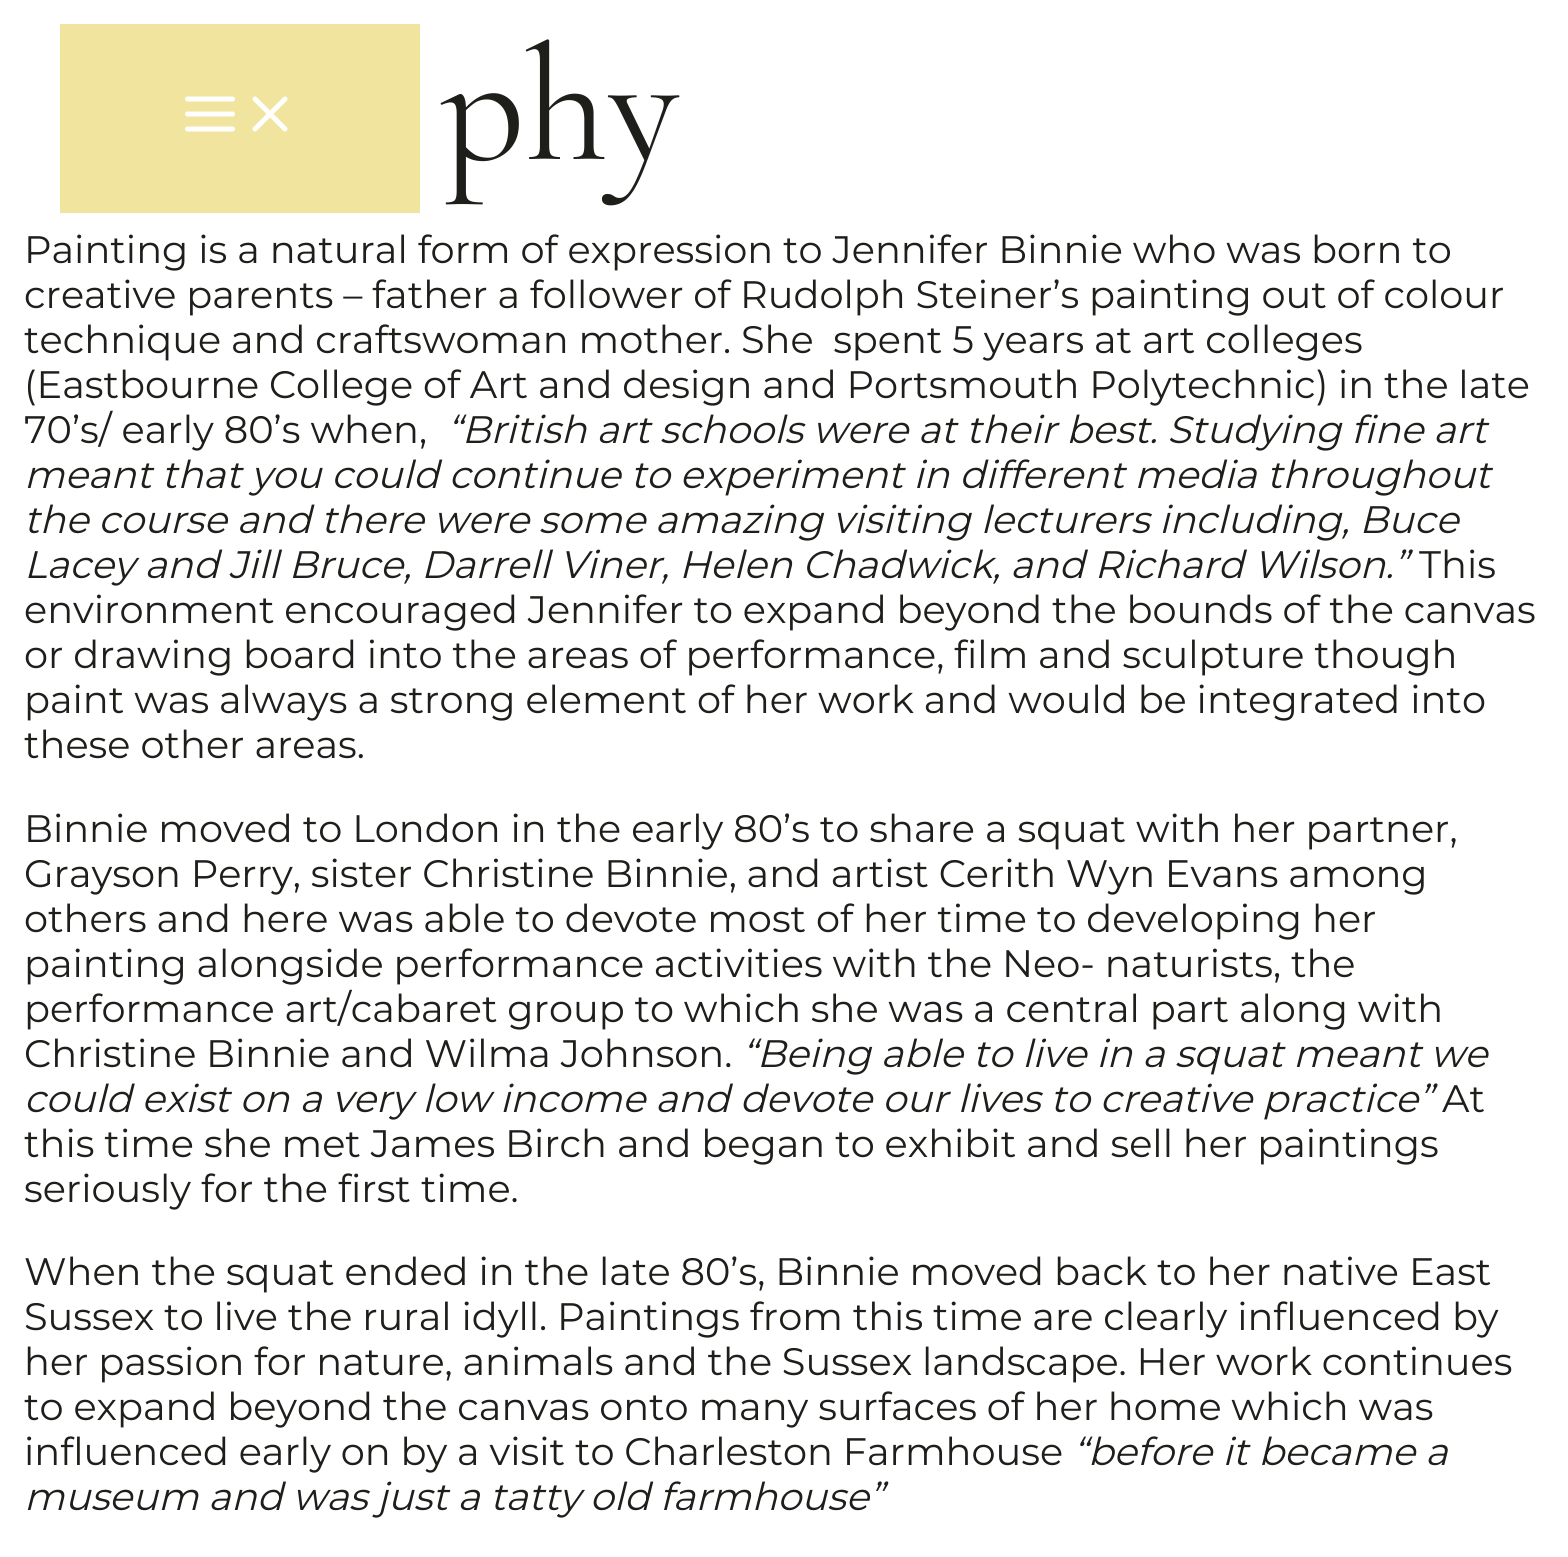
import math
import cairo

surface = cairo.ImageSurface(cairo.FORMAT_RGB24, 1568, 1557)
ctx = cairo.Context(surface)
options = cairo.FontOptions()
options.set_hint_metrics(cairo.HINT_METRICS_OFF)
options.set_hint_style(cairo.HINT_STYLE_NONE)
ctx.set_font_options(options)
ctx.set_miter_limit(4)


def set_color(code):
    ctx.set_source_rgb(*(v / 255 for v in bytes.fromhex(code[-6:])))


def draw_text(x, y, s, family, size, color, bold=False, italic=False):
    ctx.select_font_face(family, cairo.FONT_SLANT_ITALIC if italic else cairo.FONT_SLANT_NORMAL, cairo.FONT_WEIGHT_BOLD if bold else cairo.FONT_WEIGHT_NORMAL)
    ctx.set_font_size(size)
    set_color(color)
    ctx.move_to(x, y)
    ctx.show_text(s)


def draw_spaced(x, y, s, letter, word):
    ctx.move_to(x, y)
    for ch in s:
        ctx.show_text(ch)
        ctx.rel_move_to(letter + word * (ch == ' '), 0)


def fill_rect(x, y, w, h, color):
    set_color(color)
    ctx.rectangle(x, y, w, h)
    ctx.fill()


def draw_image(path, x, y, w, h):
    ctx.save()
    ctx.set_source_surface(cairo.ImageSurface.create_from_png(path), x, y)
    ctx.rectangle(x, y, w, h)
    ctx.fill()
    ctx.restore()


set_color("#ffffff")
ctx.paint()
fill_rect(60, 24, 360, 189, "#f0e49e")
draw_image("assets/img1.png", 185, 96, 50, 36)
draw_image("assets/img2.png", 252, 96, 36, 36)
draw_text(441, 159, "phy", "Cormorant Light", 165, "#1e1e1a")
ctx.select_font_face("Montserrat Thin")
ctx.set_font_size(38.3)
draw_spaced(24, 263, "Painting is a natural form of expression to Jennifer Binnie who was born to", 0, -0.1)
draw_spaced(24, 308, "creative parents – father a follower of Rudolph Steiner’s painting out of colour", 0, -0.25)
draw_spaced(24, 353, "technique and craftswoman mother. She  spent 5 years at art colleges", 0, -0.25)
draw_spaced(24, 398, "(Eastbourne College of Art and design and Portsmouth Polytechnic) in the late", 0, -0.25)
draw_text(24, 443, "70’s/ early 80’s when,", "Montserrat Thin", 38.3, "#1e1e1a")
ctx.select_font_face("Montserrat Thin", cairo.FONT_SLANT_ITALIC)
draw_spaced(447, 443, "“British art schools were at their best. Studying fine art", 0, -0.2)
draw_spaced(24, 488, "meant that you could continue to experiment in different media throughout", 0, -0.25)
draw_spaced(24, 533, "the course and there were some amazing visiting lecturers including, Buce", 0, -0.25)
draw_spaced(24, 578, "Lacey and Jill Bruce, Darrell Viner, Helen Chadwick, and Richard Wilson.”", 0, -0.25)
draw_text(1419, 578, "This", "Montserrat Thin", 38.3, "#1e1e1a")
draw_spaced(24, 623, "environment encouraged Jennifer to expand beyond the bounds of the canvas", 0, -0.25)
draw_spaced(24, 668, "or drawing board into the areas of performance, film and sculpture though", 0, -0.25)
draw_spaced(24, 713, "paint was always a strong element of her work and would be integrated into", 0, -0.2)
draw_text(24, 758, "these other areas.", "Montserrat Thin", 38.3, "#1e1e1a")
draw_spaced(24, 842, "Binnie moved to London in the early 80’s to share a squat with her partner,", 0, -0.1)
draw_spaced(24, 887, "Grayson Perry, sister Christine Binnie, and artist Cerith Wyn Evans among", 0, -0.25)
draw_spaced(24, 932, "others and here was able to devote most of her time to developing her", 0, -0.1)
draw_spaced(24, 977, "painting alongside performance activities with the Neo- naturists, the", 0, -0.25)
draw_spaced(24, 1022, "performance art/cabaret group to which she was a central part along with", 0, -0.25)
draw_spaced(24, 1067, "Christine Binnie and Wilma Johnson.", 0, -0.25)
ctx.select_font_face("Montserrat Thin", cairo.FONT_SLANT_ITALIC)
draw_spaced(742, 1067, "“Being able to live in a squat meant we", 0, -0.25)
draw_spaced(24, 1112, "could exist on a very low income and devote our lives to creative practice”", 0, -0.1)
draw_text(1442, 1112, "At", "Montserrat Thin", 38.3, "#1e1e1a")
draw_spaced(24, 1157, "this time she met James Birch and began to exhibit and sell her paintings", 0, -0.1)
draw_text(24, 1202, "seriously for the first time.", "Montserrat Thin", 38.3, "#1e1e1a")
draw_spaced(24, 1285, "When the squat ended in the late 80’s, Binnie moved back to her native East", 0, -0.1)
draw_spaced(24, 1330, "Sussex to live the rural idyll. Paintings from this time are clearly influenced by", 0, -0.2)
draw_spaced(24, 1375, "her passion for nature, animals and the Sussex landscape. Her work continues", 0, -0.25)
draw_spaced(24, 1420, "to expand beyond the canvas onto many surfaces of her home which was", 0, -0.2)
draw_spaced(24, 1465, "influenced early on by a visit to Charleston Farmhouse", 0, -0.2)
draw_text(1073, 1465, "“before it became a", "Montserrat Thin", 38.3, "#1e1e1a", italic=True)
draw_spaced(24, 1510, "museum and was just a tatty old farmhouse”", 0, -0.25)
surface.write_to_png("output.png")
